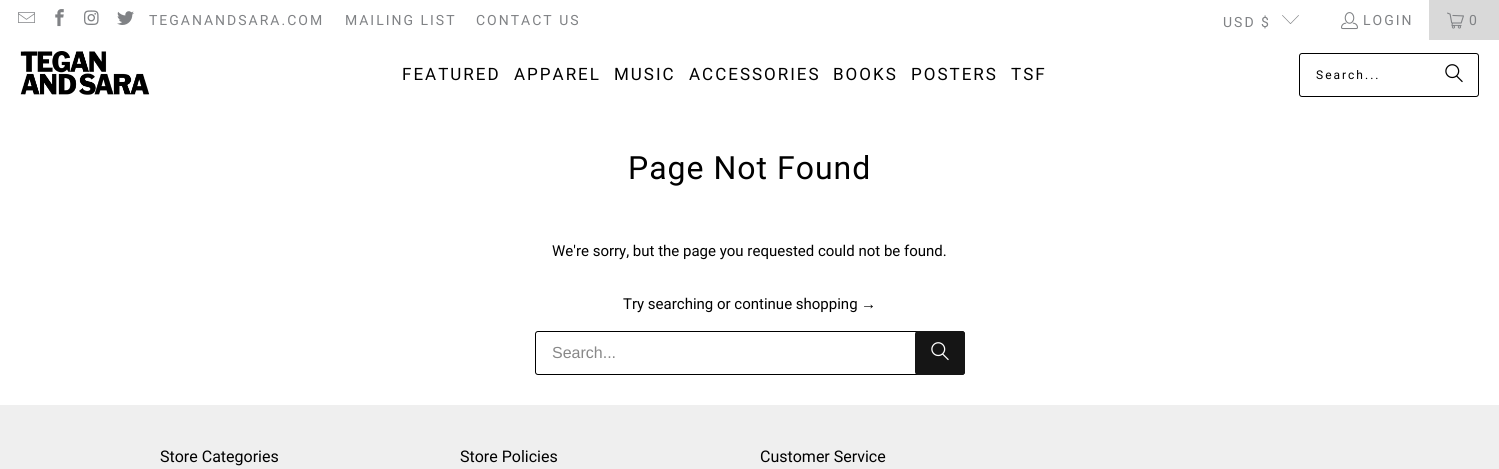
import math
import cairo

surface = cairo.ImageSurface(cairo.FORMAT_RGB24, 1499, 469)
ctx = cairo.Context(surface)
options = cairo.FontOptions()
options.set_hint_metrics(cairo.HINT_METRICS_OFF)
options.set_hint_style(cairo.HINT_STYLE_NONE)
ctx.set_font_options(options)
ctx.set_miter_limit(4)


def set_color(code):
    ctx.set_source_rgb(*(v / 255 for v in bytes.fromhex(code[-6:])))


def draw_text(x, y, s, family, size, color, bold=False, italic=False):
    ctx.select_font_face(family, cairo.FONT_SLANT_ITALIC if italic else cairo.FONT_SLANT_NORMAL, cairo.FONT_WEIGHT_BOLD if bold else cairo.FONT_WEIGHT_NORMAL)
    ctx.set_font_size(size)
    set_color(color)
    ctx.move_to(x, y)
    ctx.show_text(s)


def draw_spaced(x, y, s, letter, word):
    ctx.move_to(x, y)
    for ch in s:
        ctx.show_text(ch)
        ctx.rel_move_to(letter + word * (ch == ' '), 0)


def fill_rect(x, y, w, h, color):
    set_color(color)
    ctx.rectangle(x, y, w, h)
    ctx.fill()


def rounded_rect(x, y, w, h, r):
    ctx.new_sub_path()
    for i, (u, v) in enumerate([(x + w - r, y + h - r), (x + r, y + h - r), (x + r, y + r), (x + w - r, y + r)]):
        ctx.arc(u, v, r, i * math.pi / 2, (i + 1) * math.pi / 2)
    ctx.close_path()


def draw_image(path, x, y, w, h):
    ctx.save()
    ctx.set_source_surface(cairo.ImageSurface.create_from_png(path), x, y)
    ctx.rectangle(x, y, w, h)
    ctx.fill()
    ctx.restore()


set_color("#ffffff")
ctx.paint()
draw_image("assets/img1.png", 18, 12, 17, 11)
draw_image("assets/img2.png", 55, 9, 9, 18)
draw_image("assets/img3.png", 84, 10, 15, 15)
draw_image("assets/img4.png", 117, 11, 17, 14)
ctx.select_font_face("Roboto")
ctx.set_font_size(14)
set_color("#808285")
draw_spaced(149, 25, "TEGANANDSARA.COM", 2, 0)
draw_spaced(345, 25, "MAILING LIST", 2, 0)
draw_spaced(476, 25, "CONTACT US", 2, 0)
draw_spaced(1223, 27, "USD $", 2, 0)
draw_image("assets/img5.png", 1282, 15, 17, 9)
draw_image("assets/img6.png", 1341, 12, 17, 18)
draw_spaced(1363, 25, "LOGIN", 2, 0)
fill_rect(1429, 0, 70, 40, "#d9d9d9")
draw_image("assets/img7.png", 1447, 12, 17, 17)
set_color("#808285")
draw_spaced(1469, 25, "0", 2, 0)
draw_image("assets/img8.png", 20, 51, 130, 44)
ctx.set_font_size(17)
set_color("#000000")
draw_spaced(402, 80, "FEATURED", 2, 0)
draw_spaced(514, 80, "APPAREL", 2, 0)
draw_spaced(614, 80, "MUSIC", 2, 0)
draw_spaced(689, 80, "ACCESSORIES", 2, 0)
draw_spaced(833, 80, "BOOKS", 2, 0)
draw_spaced(911, 80, "POSTERS", 2, 0)
draw_spaced(1011, 80, "TSF", 2, 0)
rounded_rect(1299.5, 53.5, 179, 43, 2.5)
ctx.set_line_width(1)
ctx.stroke()
ctx.set_font_size(12)
draw_spaced(1316, 79, "Search...", 2, 0)
draw_image("assets/img9.png", 1445, 64, 18, 19)
ctx.set_font_size(32)
draw_spaced(628, 179, "Page Not Found", 1, 0)
draw_text(552, 256, "We're sorry, but the page you requested could not be found.", "Roboto", 15, "#000000")
draw_text(623, 309, "Try searching or continue shopping", "Roboto", 15, "#000000")
draw_text(861, 309, "→", "Liberation Sans", 15, "#000000")
rounded_rect(535.5, 331.5, 429, 43, 2.5)
ctx.stroke()
draw_text(552, 358, "Search...", "Liberation Sans", 16, "#888888")
set_color("#151515")
rounded_rect(915, 331, 50, 44, 3)
ctx.fill()
draw_image("assets/img10.png", 931, 342, 18, 19)
fill_rect(0, 405, 1499, 64, "#efefef")
draw_text(160, 462, "Store Categories", "Roboto", 16, "#000000")
draw_text(460, 462, "Store Policies", "Roboto", 16, "#000000")
draw_text(760, 462, "Customer Service", "Roboto", 16, "#000000")
surface.write_to_png("output.png")
